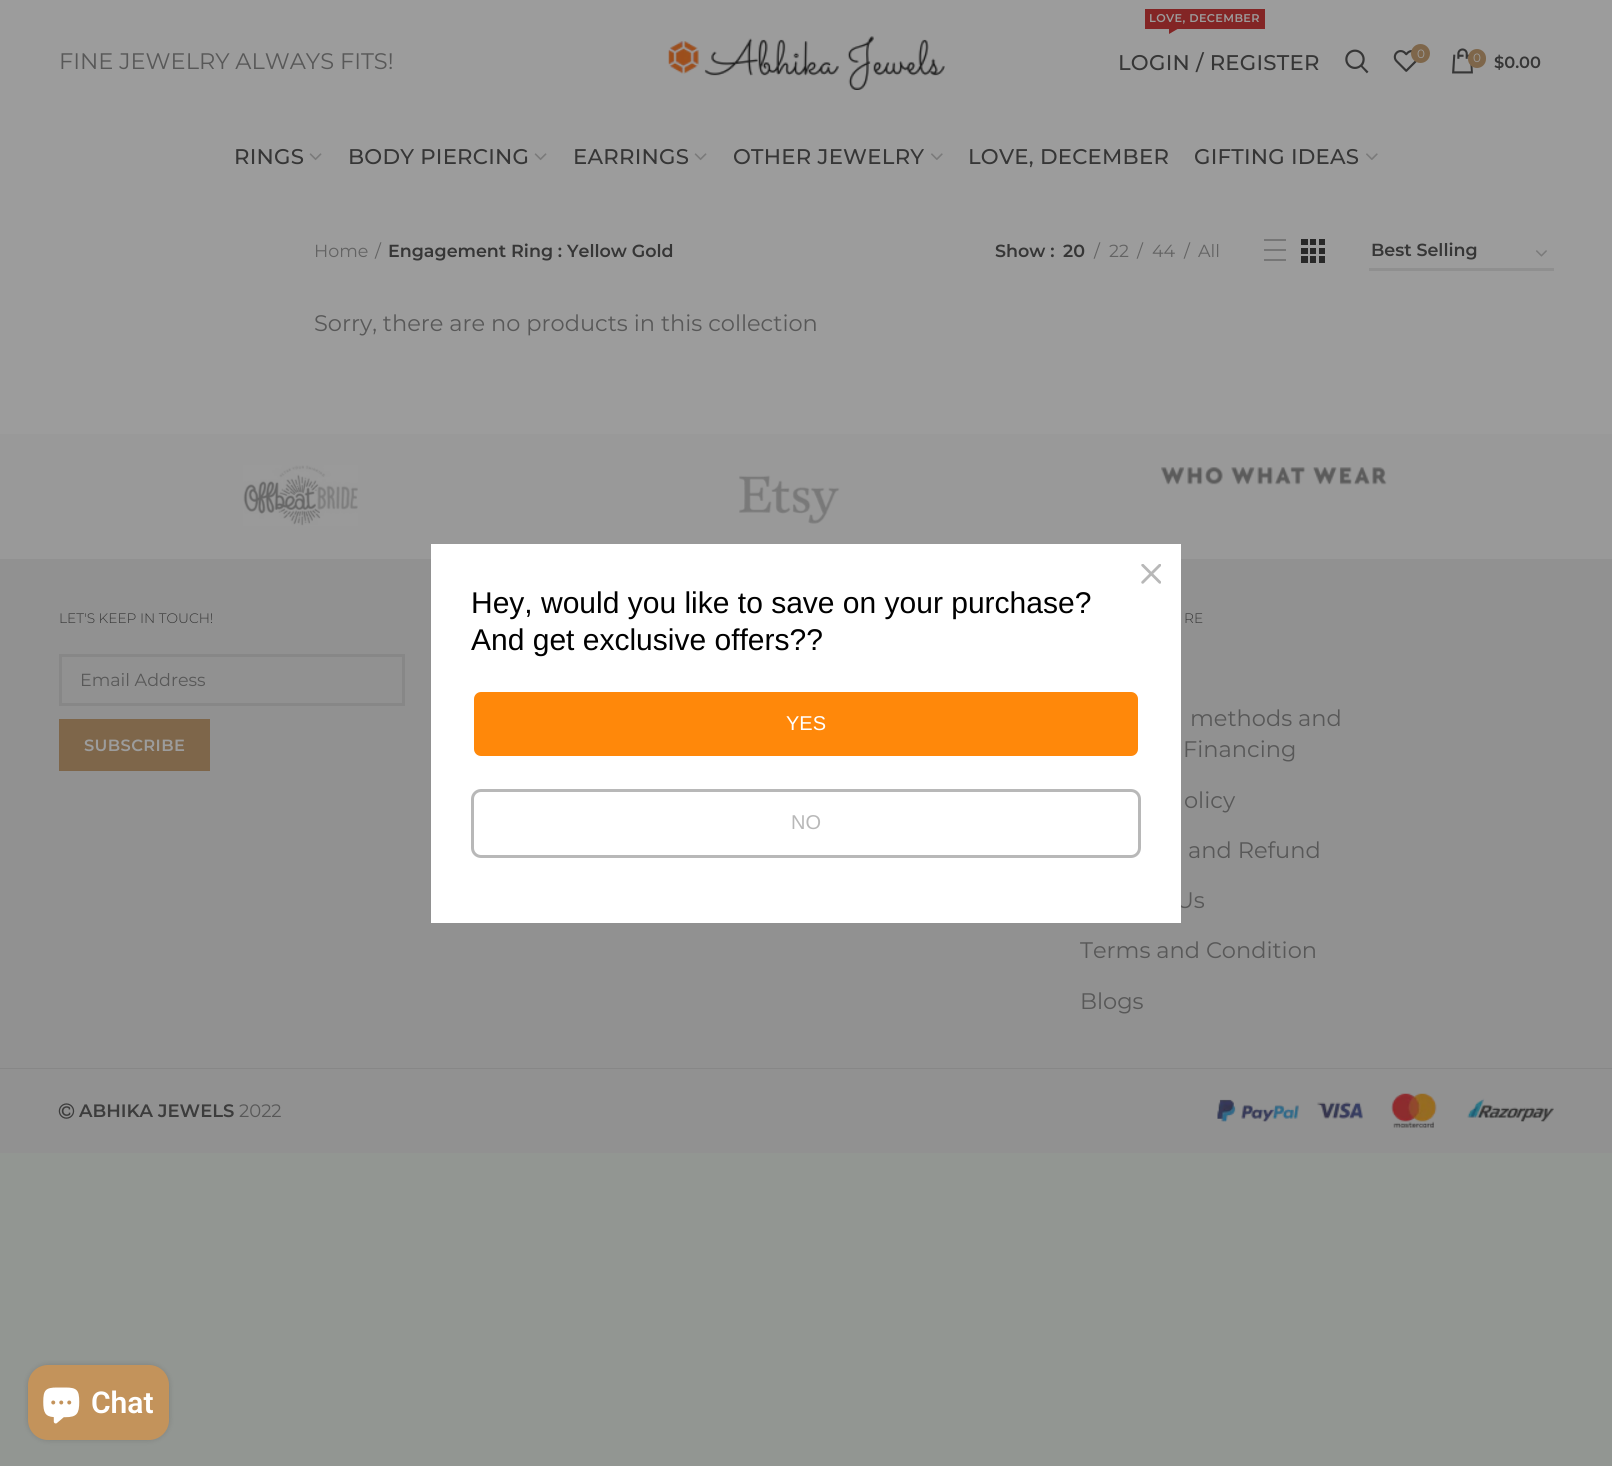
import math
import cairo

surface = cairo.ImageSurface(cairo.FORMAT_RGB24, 1612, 1466)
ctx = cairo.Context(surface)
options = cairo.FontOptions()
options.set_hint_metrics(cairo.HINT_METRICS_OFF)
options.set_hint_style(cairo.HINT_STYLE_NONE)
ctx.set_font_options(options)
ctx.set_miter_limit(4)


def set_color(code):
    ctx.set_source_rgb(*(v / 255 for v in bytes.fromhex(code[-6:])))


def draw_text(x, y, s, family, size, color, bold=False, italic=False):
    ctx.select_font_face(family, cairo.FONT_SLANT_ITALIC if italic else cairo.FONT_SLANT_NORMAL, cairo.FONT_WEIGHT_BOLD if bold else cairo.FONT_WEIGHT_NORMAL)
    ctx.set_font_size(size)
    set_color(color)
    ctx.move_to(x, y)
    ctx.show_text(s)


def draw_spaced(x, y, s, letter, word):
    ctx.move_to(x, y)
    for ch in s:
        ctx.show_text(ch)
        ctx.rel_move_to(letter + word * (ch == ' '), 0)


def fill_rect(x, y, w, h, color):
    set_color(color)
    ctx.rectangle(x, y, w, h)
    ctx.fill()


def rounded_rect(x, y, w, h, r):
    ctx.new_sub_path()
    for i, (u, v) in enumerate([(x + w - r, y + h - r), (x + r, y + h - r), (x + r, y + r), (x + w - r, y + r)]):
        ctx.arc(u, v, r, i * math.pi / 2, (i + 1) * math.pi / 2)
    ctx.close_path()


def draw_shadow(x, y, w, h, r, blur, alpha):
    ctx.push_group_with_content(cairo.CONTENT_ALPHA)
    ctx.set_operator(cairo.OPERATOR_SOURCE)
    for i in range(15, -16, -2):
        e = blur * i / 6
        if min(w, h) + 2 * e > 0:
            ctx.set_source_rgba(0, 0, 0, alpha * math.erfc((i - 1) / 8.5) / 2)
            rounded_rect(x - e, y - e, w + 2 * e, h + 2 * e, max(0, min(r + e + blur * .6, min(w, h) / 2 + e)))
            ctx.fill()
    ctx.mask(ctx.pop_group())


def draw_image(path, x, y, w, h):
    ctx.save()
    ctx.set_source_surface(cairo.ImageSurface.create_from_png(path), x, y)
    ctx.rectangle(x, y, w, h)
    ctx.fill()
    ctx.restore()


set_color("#929692")
ctx.paint()
fill_rect(0, 0, 1612, 434, "#9c9c9c")
ctx.select_font_face("Montserrat Medium")
ctx.set_font_size(21.25)
set_color("#363636")
draw_spaced(234, 164, "RINGS", 0.25, 0)
draw_image("assets/img1.png", 309, 153, 13, 8)
draw_spaced(348, 164, "BODY PIERCING", 0.25, 0)
draw_image("assets/img1.png", 534, 153, 13, 8)
draw_spaced(573, 164, "EARRINGS", 0.25, 0)
draw_image("assets/img1.png", 694, 153, 13, 8)
draw_spaced(733, 164, "OTHER JEWELRY", 0.25, 0)
draw_image("assets/img2.png", 931, 153, 12, 7)
fill_rect(1145, 9, 120, 20, "#832525")
ctx.select_font_face("Montserrat SemiBold")
ctx.set_font_size(11.25)
set_color("#9c9c9c")
draw_spaced(1149, 22, "LOVE, DECEMBER", 0.4, 0)
set_color("#832525")
ctx.new_path()
ctx.move_to(1169, 29)
ctx.line_to(1177.5, 29)
ctx.line_to(1169, 34)
ctx.close_path()
ctx.fill()
ctx.select_font_face("Montserrat Medium")
ctx.set_font_size(21.25)
set_color("#363636")
draw_spaced(968, 164, "LOVE, DECEMBER", 0.25, 0)
draw_spaced(1194, 164, "GIFTING IDEAS", 0.25, 0)
draw_image("assets/img2.png", 1366, 153, 12, 7)
draw_text(59, 69, "FINE JEWELRY ALWAYS FITS!", "Montserrat", 22.5, "#585858")
draw_image("assets/img3.png", 668, 36, 277, 54)
ctx.select_font_face("Montserrat Medium")
ctx.set_font_size(21.25)
set_color("#363636")
draw_spaced(1118, 70, "LOGIN / REGISTER", 0.25, 0)
draw_image("assets/img4.png", 1345, 49, 24, 25)
draw_image("assets/img5.png", 1393, 50, 24, 22)
set_color("#7e664a")
ctx.arc(1420.5, 53.5, 9.5, 0, 2 * math.pi)
ctx.fill()
draw_text(1417, 58, "0", "Montserrat", 12, "#9c9c9c")
draw_image("assets/img6.png", 1452, 48, 21, 26)
set_color("#7e664a")
rounded_rect(1468, 49, 18, 19, 9)
ctx.fill()
draw_text(1473, 62, "0", "Montserrat", 12, "#9c9c9c")
draw_text(1494, 68, "$0.00", "Montserrat SemiBold", 16.25, "#363636")
draw_text(314, 257, "Home", "Montserrat", 17.5, "#636363")
draw_text(375, 257, "/", "Montserrat", 17.5, "#636363")
draw_text(388, 257, "Engagement Ring : Yellow Gold", "Montserrat SemiBold", 17.5, "#363636")
draw_text(995, 257, "Show :", "Montserrat SemiBold", 17.5, "#363636")
draw_text(1063, 257, "20", "Montserrat SemiBold", 17.5, "#363636")
draw_text(1094, 257, "/", "Montserrat", 17.5, "#636363")
draw_text(1109, 257, "22", "Montserrat", 17.5, "#636363")
draw_text(1137, 257, "/", "Montserrat", 17.5, "#636363")
draw_text(1152, 257, "44", "Montserrat", 17.5, "#636363")
draw_text(1184, 257, "/", "Montserrat", 17.5, "#636363")
draw_text(1198, 257, "All", "Montserrat", 17.5, "#636363")
fill_rect(1264, 239, 22, 2, "#767676")
fill_rect(1264, 259, 22, 2, "#767676")
fill_rect(1264, 249, 22, 2, "#767676")
draw_image("assets/img7.png", 1301, 239, 24, 24)
fill_rect(1369, 268, 185, 3, "#8f8f8f")
draw_text(1371, 256, "Best Selling", "Montserrat SemiBold", 17.5, "#363636")
draw_image("assets/img8.png", 1536, 250, 11, 7)
draw_text(314, 331, "Sorry, there are no products in this collection", "Montserrat", 22.5, "#585858")
fill_rect(0, 434, 1612, 125, "#999999")
draw_image("assets/img9.png", 243, 465, 115, 61)
draw_image("assets/img10.png", 739, 475, 101, 49)
draw_image("assets/img11.png", 1161, 467, 226, 18)
fill_rect(0, 559, 1612, 594, "#919191")
draw_text(59, 623, "LET'S KEEP IN TOUCH!", "Montserrat Light", 13.75, "#363636")
ctx.rectangle(60.5, 655.5, 343, 49)
set_color("#878787")
ctx.set_line_width(3)
ctx.stroke()
draw_text(80, 686, "Email Address", "Montserrat", 17.5, "#585858")
fill_rect(59, 719, 151, 52, "#7e664a")
ctx.select_font_face("Montserrat SemiBold")
ctx.set_font_size(16.25)
set_color("#9c9c9c")
draw_spaced(84, 751, "SUBSCRIBE", 0.4, 0)
draw_text(1184, 623, "RE", "Montserrat Light", 13.75, "#363636")
draw_text(1190, 726, "methods and", "Montserrat", 22.5, "#585858")
draw_text(1183, 757, "Financing", "Montserrat", 22.5, "#585858")
draw_text(1184, 808, "olicy", "Montserrat", 22.5, "#585858")
draw_text(1188, 858, "and Refund", "Montserrat", 22.5, "#585858")
draw_text(1176, 908, "Us", "Montserrat", 22.5, "#585858")
draw_text(1080, 958, "Terms and Condition", "Montserrat", 22.5, "#585858")
draw_text(1080, 1009, "Blogs", "Montserrat", 22.5, "#585858")
fill_rect(0, 1068, 1612, 1, "#878787")
draw_image("assets/img12.png", 58, 1103, 17, 16)
draw_text(79, 1117, "ABHIKA JEWELS", "Montserrat SemiBold", 18, "#3c3c3c")
draw_text(239, 1117, "2022", "Montserrat", 18, "#585858")
draw_image("assets/img13.png", 1217, 1093, 337, 35)
fill_rect(431, 544, 750, 379, "#ffffff")
draw_image("assets/img14.png", 1141, 564, 20, 20)
draw_text(471, 613, "Hey, would you like to save on your purchase?", "Liberation Sans", 30, "#000000")
draw_text(471, 650, "And get exclusive offers??", "Liberation Sans", 30, "#000000")
set_color("#ff880a")
rounded_rect(472.5, 690.5, 667, 67, 8.5)
ctx.fill_preserve()
set_color("#ffffff")
ctx.stroke()
draw_text(786, 730, "YES", "Liberation Sans", 20, "#ffffff")
rounded_rect(472.5, 790.5, 667, 66, 8.5)
set_color("#b8b8b8")
ctx.stroke()
draw_text(791, 829, "NO", "Liberation Sans", 20, "#b8b8b8")
set_color("#000000")
draw_shadow(28, 1365, 141, 75, 20, 3, 0.15)
set_color("#c3935b")
rounded_rect(28, 1365, 141, 75, 20)
ctx.fill()
draw_image("assets/img15.png", 43, 1387, 37, 37)
draw_text(91, 1413, "Chat", "Roboto SemiBold", 30, "#ffffff")
surface.write_to_png("output.png")
